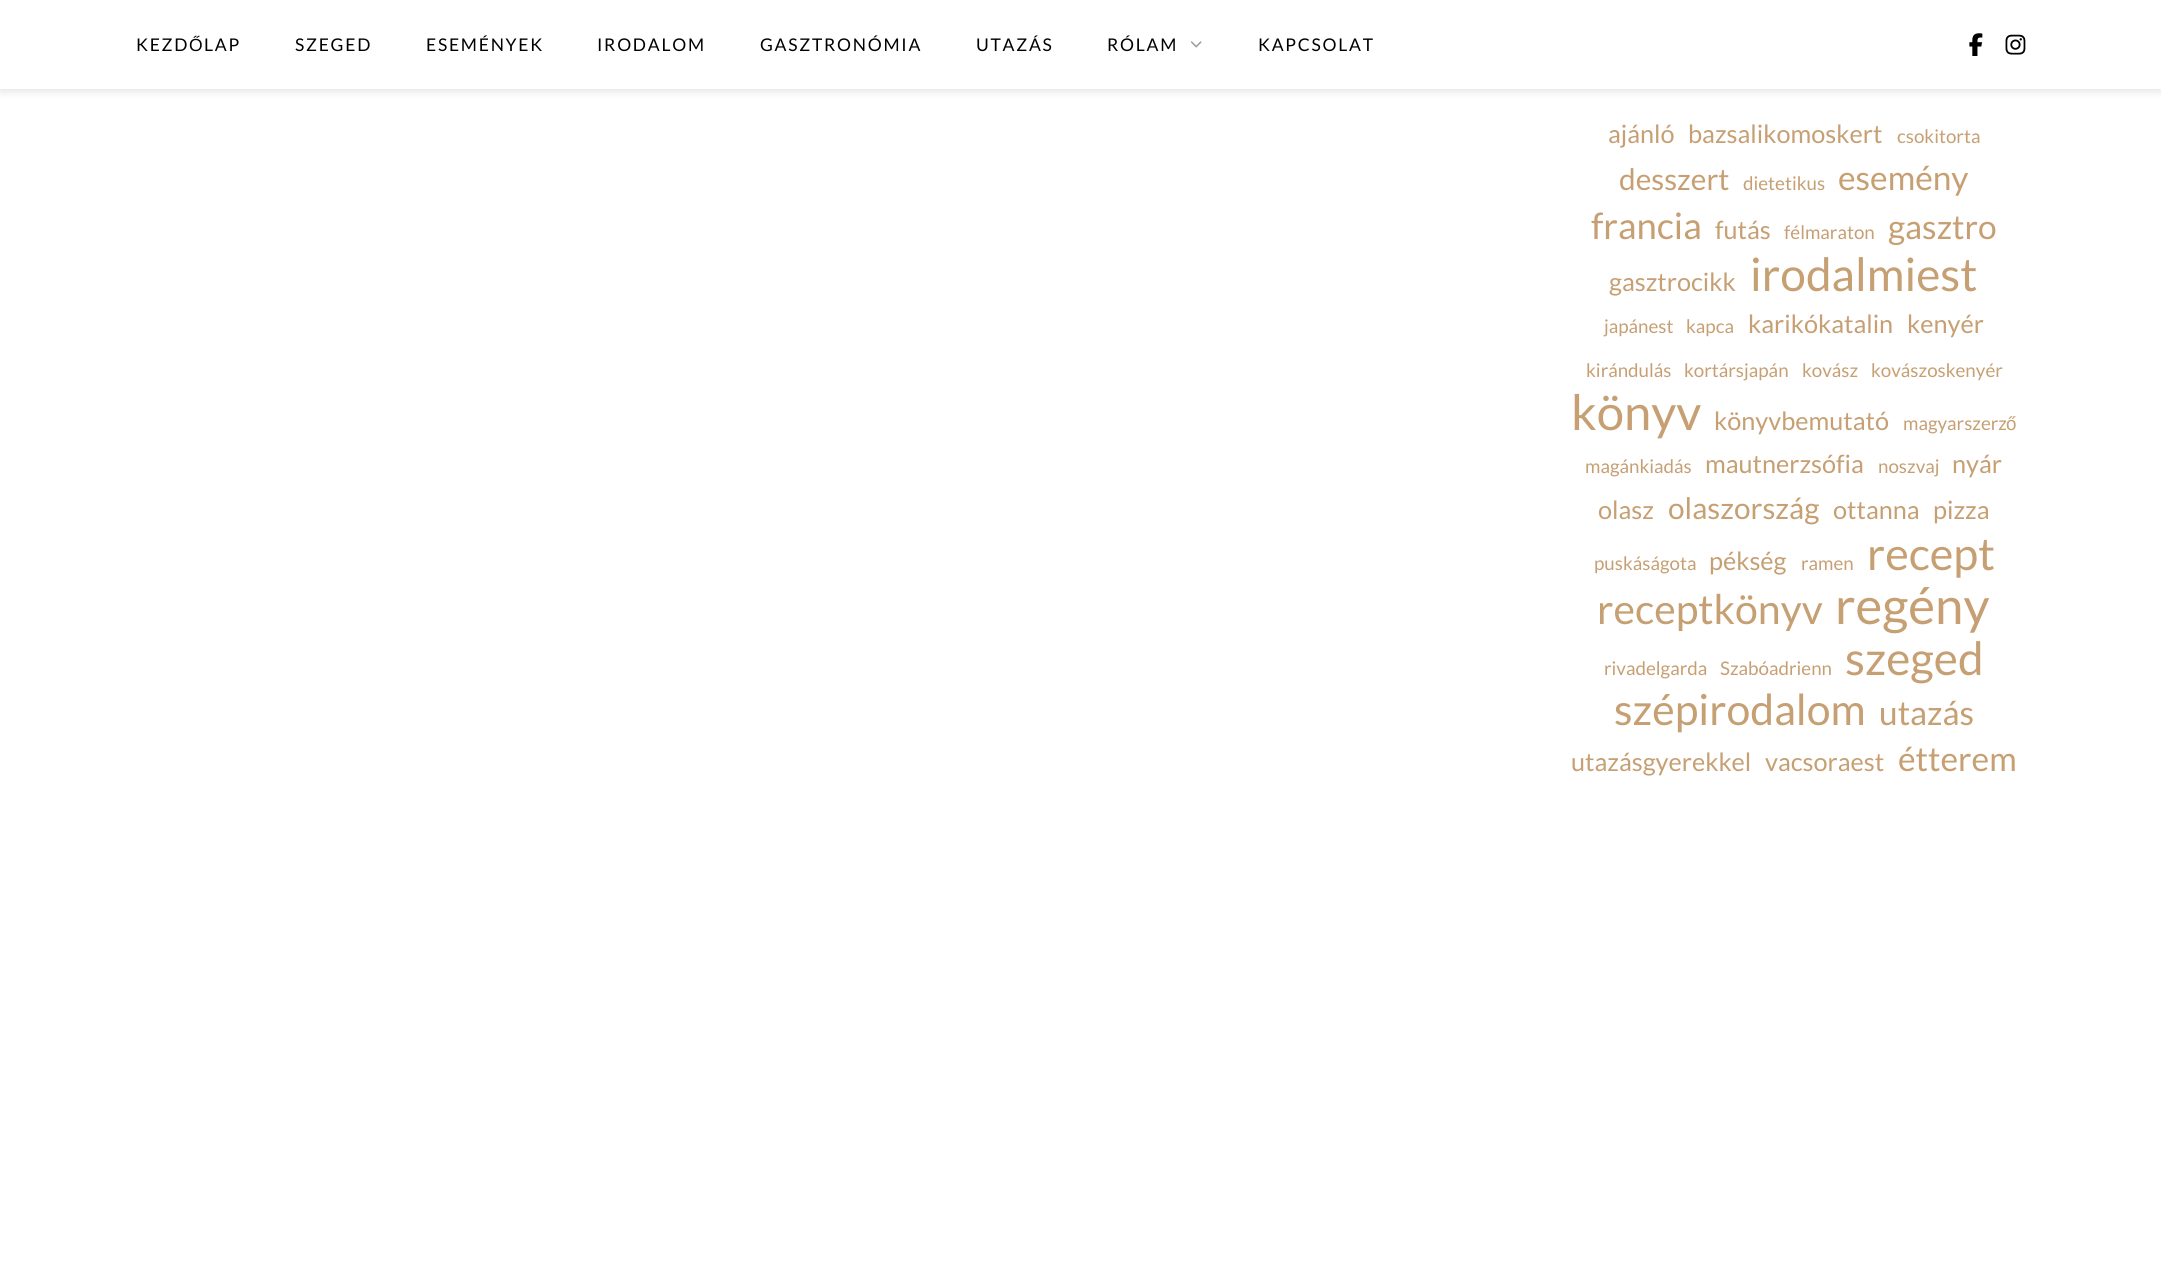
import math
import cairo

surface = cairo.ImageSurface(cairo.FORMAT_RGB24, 2161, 1281)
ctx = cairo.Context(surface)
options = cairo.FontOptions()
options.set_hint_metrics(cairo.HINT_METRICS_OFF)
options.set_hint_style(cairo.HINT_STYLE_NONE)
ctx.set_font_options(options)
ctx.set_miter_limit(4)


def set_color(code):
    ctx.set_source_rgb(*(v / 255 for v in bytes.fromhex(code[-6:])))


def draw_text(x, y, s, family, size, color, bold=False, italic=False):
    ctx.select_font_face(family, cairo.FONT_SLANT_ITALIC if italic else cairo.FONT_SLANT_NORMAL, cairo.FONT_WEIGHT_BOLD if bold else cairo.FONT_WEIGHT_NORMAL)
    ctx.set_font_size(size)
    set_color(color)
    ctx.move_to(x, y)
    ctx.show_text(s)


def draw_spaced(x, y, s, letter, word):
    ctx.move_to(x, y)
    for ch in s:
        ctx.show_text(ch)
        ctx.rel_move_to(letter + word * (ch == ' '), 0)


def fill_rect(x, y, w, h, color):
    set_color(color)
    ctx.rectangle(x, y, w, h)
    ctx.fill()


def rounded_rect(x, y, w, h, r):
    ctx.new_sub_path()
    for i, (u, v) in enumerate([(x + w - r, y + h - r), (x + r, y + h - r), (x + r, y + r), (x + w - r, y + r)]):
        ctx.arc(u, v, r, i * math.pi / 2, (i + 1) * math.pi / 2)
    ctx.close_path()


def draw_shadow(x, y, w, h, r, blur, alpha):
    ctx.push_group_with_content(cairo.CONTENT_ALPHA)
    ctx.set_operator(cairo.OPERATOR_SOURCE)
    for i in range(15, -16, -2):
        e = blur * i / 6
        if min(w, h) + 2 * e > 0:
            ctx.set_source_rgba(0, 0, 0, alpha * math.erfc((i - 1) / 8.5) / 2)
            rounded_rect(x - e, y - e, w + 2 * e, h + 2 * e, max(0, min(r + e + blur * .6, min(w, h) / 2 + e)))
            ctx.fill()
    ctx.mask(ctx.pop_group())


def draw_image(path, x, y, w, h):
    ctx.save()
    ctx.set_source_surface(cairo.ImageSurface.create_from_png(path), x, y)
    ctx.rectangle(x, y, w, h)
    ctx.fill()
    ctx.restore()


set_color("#ffffff")
ctx.paint()
set_color("#bebebe")
draw_shadow(0, 2, 2161, 89, 0, 4.5, 0.46)
fill_rect(0, 0, 2161, 89, "#ffffff")
ctx.select_font_face("Lato")
ctx.set_font_size(17.5)
set_color("#000000")
draw_spaced(136, 51, "KEZD", 1.75, 0)
ctx.select_font_face("Liberation Sans")
draw_spaced(189, 51, "Ő", 1.75, 0)
ctx.select_font_face("Lato")
draw_spaced(204, 51, "LAP", 1.75, 0)
draw_spaced(295, 51, "SZEGED", 1.75, 0)
draw_spaced(426, 51, "ESEMÉNYEK", 1.75, 0)
draw_spaced(597, 51, "IRODALOM", 1.75, 0)
draw_spaced(760, 51, "GASZTRONÓMIA", 1.75, 0)
draw_spaced(976, 51, "UTAZÁS", 1.75, 0)
draw_spaced(1107, 51, "RÓLAM", 1.75, 0)
draw_image("assets/img1.png", 1190, 41, 12, 7)
draw_spaced(1258, 51, "KAPCSOLAT", 1.75, 0)
draw_image("assets/img2.png", 1969, 33, 14, 23)
draw_image("assets/img3.png", 2005, 34, 21, 21)
draw_text(1608, 143, "ajánló", "Lato", 25.25, "#c69f73")
draw_text(1688, 143, "bazsalikomoskert", "Lato", 25.25, "#c69f73")
draw_text(1897, 143, "csokitorta", "Lato", 18.75, "#c69f73")
draw_text(1619, 190, "desszert", "Lato", 29.75, "#c69f73")
draw_text(1743, 190, "dietetikus", "Lato", 18.75, "#c69f73")
draw_text(1838, 190, "esemény", "Lato", 33.5, "#c69f73")
draw_text(1591, 239, "francia", "Lato", 36.5, "#c69f73")
draw_text(1715, 239, "futás", "Lato", 25.25, "#c69f73")
draw_text(1784, 239, "félmaraton", "Lato", 18.75, "#c69f73")
draw_text(1888, 239, "gasztro", "Lato", 33.5, "#c69f73")
draw_text(1609, 291, "gasztrocikk", "Lato", 25.25, "#c69f73")
draw_text(1750, 291, "irodalmiest", "Lato", 46, "#c69f73")
draw_text(1604, 333, "japánest", "Lato", 18.75, "#c69f73")
draw_text(1686, 333, "kapca", "Lato", 18.75, "#c69f73")
draw_text(1748, 333, "karikókatalin", "Lato", 25.25, "#c69f73")
draw_text(1907, 333, "kenyér", "Lato", 25.25, "#c69f73")
draw_text(1586, 377, "kirándulás", "Lato", 18.75, "#c69f73")
draw_text(1684, 377, "kortársjapán", "Lato", 18.75, "#c69f73")
draw_text(1802, 377, "kovász", "Lato", 18.75, "#c69f73")
draw_text(1871, 377, "kovászoskenyér", "Lato", 18.75, "#c69f73")
draw_text(1571, 430, "könyv", "Lato", 49, "#c69f73")
draw_text(1714, 430, "könyvbemutató", "Lato", 25.25, "#c69f73")
draw_text(1903, 430, "magyarszerz", "Lato", 18.75, "#c69f73")
draw_text(2006, 430, "ő", "Liberation Sans", 18.75, "#c69f73")
draw_text(1585, 473, "magánkiadás", "Lato", 18.75, "#c69f73")
draw_text(1705, 473, "mautnerzsófia", "Lato", 25.25, "#c69f73")
draw_text(1878, 473, "noszvaj", "Lato", 18.75, "#c69f73")
draw_text(1952, 473, "nyár", "Lato", 25.25, "#c69f73")
draw_text(1598, 519, "olasz", "Lato", 25.25, "#c69f73")
draw_text(1668, 519, "olaszország", "Lato", 29.75, "#c69f73")
draw_text(1833, 519, "ottanna", "Lato", 25.25, "#c69f73")
draw_text(1933, 519, "pizza", "Lato", 25.25, "#c69f73")
draw_text(1594, 570, "puskáságota", "Lato", 18.75, "#c69f73")
draw_text(1709, 570, "pékség", "Lato", 25.25, "#c69f73")
draw_text(1801, 570, "ramen", "Lato", 18.75, "#c69f73")
draw_text(1867, 570, "recept", "Lato", 45, "#c69f73")
draw_text(1597, 624, "receptkönyv", "Lato", 41, "#c69f73")
draw_text(1835, 624, "regény", "Lato", 51, "#c69f73")
draw_text(1604, 675, "rivadelgarda", "Lato", 18.75, "#c69f73")
draw_text(1720, 675, "Szabóadrienn", "Lato", 18.75, "#c69f73")
draw_text(1845, 675, "szeged", "Lato", 46, "#c69f73")
draw_text(1614, 725, "szépirodalom", "Lato", 42.75, "#c69f73")
draw_text(1879, 725, "utazás", "Lato", 33.5, "#c69f73")
draw_text(1571, 771, "utazásgyerekkel", "Lato", 25.25, "#c69f73")
draw_text(1765, 771, "vacsoraest", "Lato", 25.25, "#c69f73")
draw_text(1898, 771, "étterem", "Lato", 33.5, "#c69f73")
surface.write_to_png("output.png")
